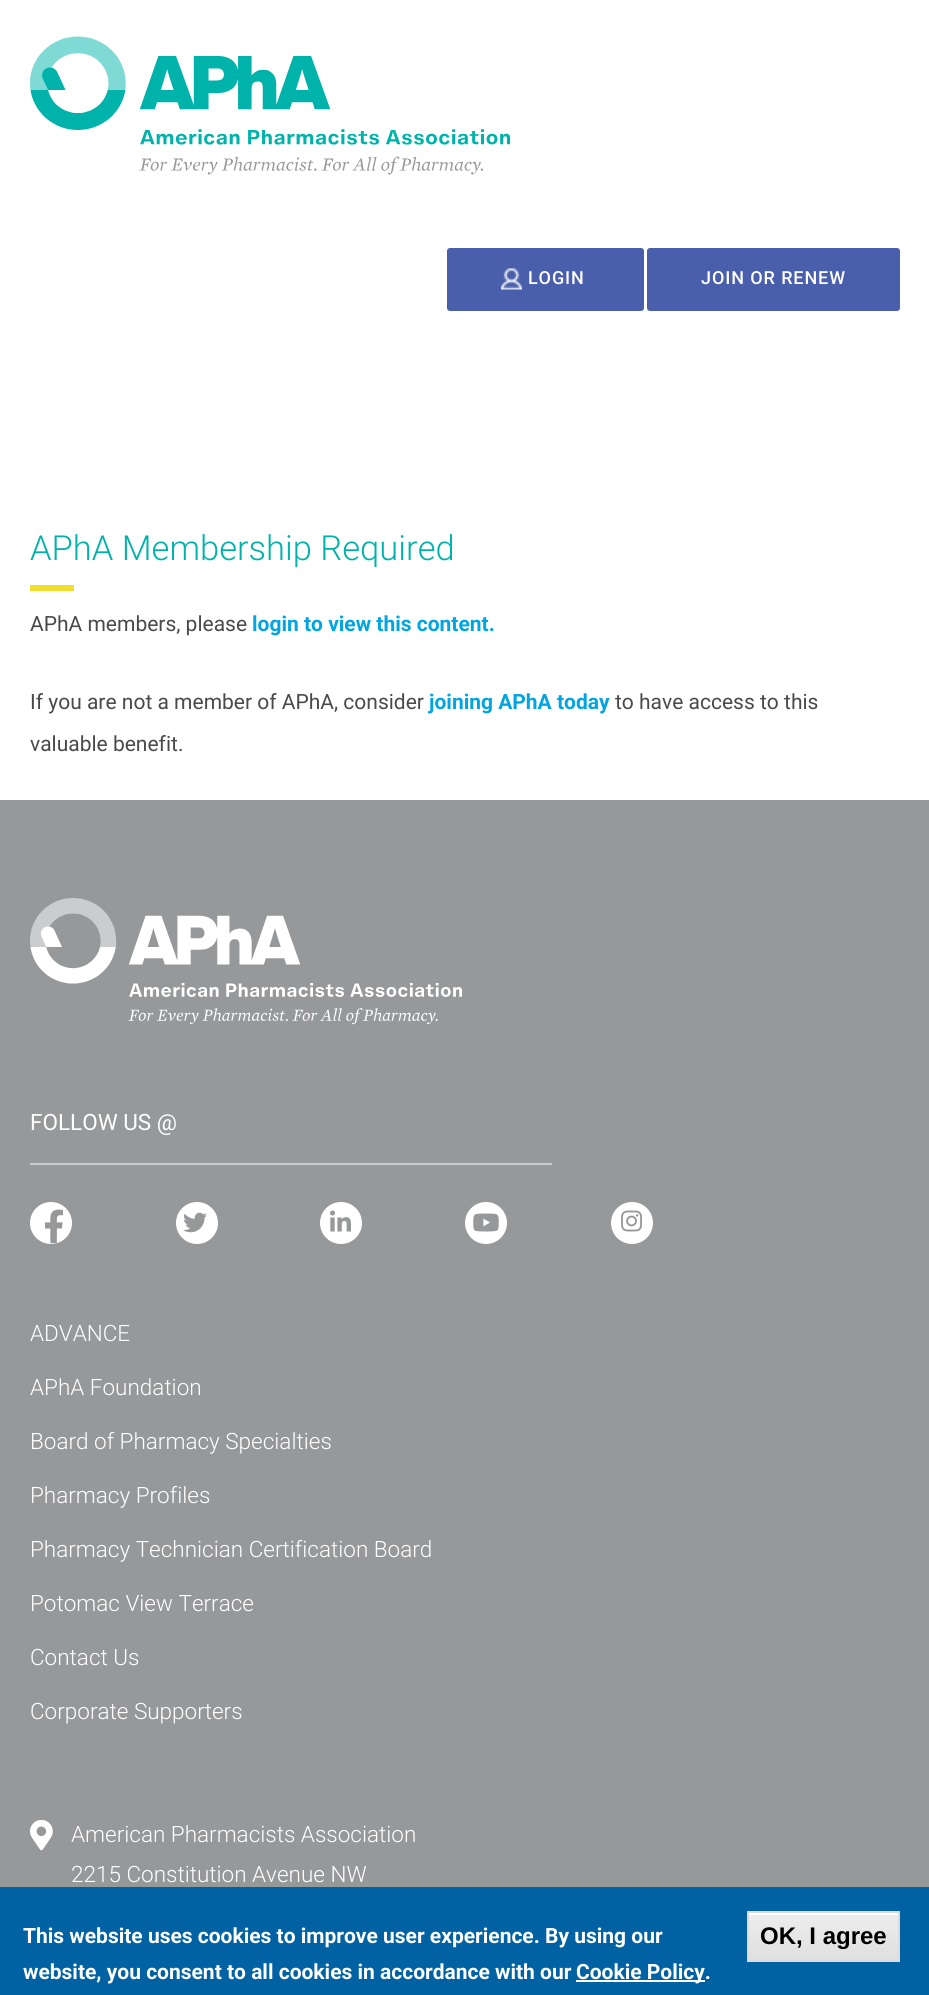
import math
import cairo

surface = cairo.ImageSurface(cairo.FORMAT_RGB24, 929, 1995)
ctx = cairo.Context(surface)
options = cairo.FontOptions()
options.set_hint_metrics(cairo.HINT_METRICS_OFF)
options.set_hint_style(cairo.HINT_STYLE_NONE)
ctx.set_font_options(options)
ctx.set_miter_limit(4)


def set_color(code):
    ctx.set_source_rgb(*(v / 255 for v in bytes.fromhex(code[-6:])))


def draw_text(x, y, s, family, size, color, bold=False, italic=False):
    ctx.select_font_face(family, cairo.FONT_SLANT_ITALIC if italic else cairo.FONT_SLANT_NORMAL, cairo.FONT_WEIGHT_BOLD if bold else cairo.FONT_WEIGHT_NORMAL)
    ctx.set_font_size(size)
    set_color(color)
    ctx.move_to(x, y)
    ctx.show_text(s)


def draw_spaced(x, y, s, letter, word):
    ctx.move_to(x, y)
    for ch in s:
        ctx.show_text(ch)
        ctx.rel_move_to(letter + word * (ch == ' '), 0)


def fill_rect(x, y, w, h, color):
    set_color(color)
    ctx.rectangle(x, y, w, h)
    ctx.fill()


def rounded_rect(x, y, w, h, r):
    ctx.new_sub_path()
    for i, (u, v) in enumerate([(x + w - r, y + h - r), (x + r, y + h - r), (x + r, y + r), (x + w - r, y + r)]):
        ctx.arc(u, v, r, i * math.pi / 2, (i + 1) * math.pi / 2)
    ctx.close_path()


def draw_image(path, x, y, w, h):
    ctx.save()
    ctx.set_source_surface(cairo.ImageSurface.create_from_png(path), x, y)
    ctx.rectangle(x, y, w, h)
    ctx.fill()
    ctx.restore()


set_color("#ffffff")
ctx.paint()
draw_image("assets/img1.png", 30, 36, 480, 139)
set_color("#4a5fab")
rounded_rect(447, 248, 197, 63, 3)
ctx.fill()
draw_image("assets/img2.png", 501, 268, 21, 22)
ctx.select_font_face("Roboto Medium")
ctx.set_font_size(18)
set_color("#ffffff")
draw_spaced(528, 284, "LOGIN", 0.9, 0)
set_color("#4a5fab")
rounded_rect(647, 248, 253, 63, 3)
ctx.fill()
set_color("#ffffff")
draw_spaced(701, 284, "JOIN OR RENEW", 0.9, 0)
fill_rect(30, 585, 44, 6, "#f2de2e")
draw_text(30, 560, "APhA Membership Required", "Roboto Light", 34.5, "#00b3aa")
draw_text(30, 631, "APhA members, please", "Roboto", 21, "#4a4a4a")
draw_text(252, 631, "login to view this content.", "Roboto", 21, "#00a5e1", bold=True)
draw_text(30, 709, "If you are not a member of APhA, consider", "Roboto", 21, "#4a4a4a")
draw_text(429, 709, "joining APhA today", "Roboto", 21, "#00a5e1", bold=True)
draw_text(615, 709, "to have access to this", "Roboto", 21, "#4a4a4a")
draw_text(30, 751, "valuable benefit.", "Roboto", 21, "#4a4a4a")
fill_rect(0, 800, 929, 1087, "#97989a")
draw_image("assets/img3.png", 30, 898, 432, 127)
fill_rect(30, 1163, 522, 2, "#cbcccd")
draw_text(30, 1130, "FOLLOW US @", "Roboto", 22.5, "#ffffff")
ctx.new_path()
ctx.arc(51, 1223, 21, 0, 2 * math.pi)
ctx.fill()
draw_image("assets/img4.png", 45, 1209, 18, 35)
ctx.arc(197, 1223, 21, 0, 2 * math.pi)
ctx.fill()
draw_image("assets/img5.png", 183, 1212, 24, 21)
ctx.arc(341, 1223, 21, 0, 2 * math.pi)
ctx.fill()
draw_image("assets/img6.png", 330, 1210, 21, 22)
ctx.arc(486, 1223, 21, 0, 2 * math.pi)
ctx.fill()
draw_image("assets/img7.png", 473, 1213, 26, 19)
ctx.arc(632, 1223, 21, 0, 2 * math.pi)
ctx.fill()
draw_image("assets/img8.png", 621, 1210, 22, 22)
draw_text(30, 1341, "ADVANCE", "Roboto Light", 22.5, "#ffffff")
draw_text(30, 1395, "APhA Foundation", "Roboto Light", 22.5, "#ffffff")
draw_text(30, 1449, "Board of Pharmacy Specialties", "Roboto Light", 22.5, "#ffffff")
draw_text(30, 1503, "Pharmacy Profiles", "Roboto Light", 22.5, "#ffffff")
draw_text(30, 1557, "Pharmacy Technician Certification Board", "Roboto Light", 22.5, "#ffffff")
draw_text(30, 1611, "Potomac View Terrace", "Roboto Light", 22.5, "#ffffff")
draw_text(30, 1665, "Contact Us", "Roboto Light", 22.5, "#ffffff")
draw_text(30, 1719, "Corporate Supporters", "Roboto Light", 22.5, "#ffffff")
draw_image("assets/img9.png", 30, 1819, 23, 32)
draw_text(71, 1842, "American Pharmacists Association", "Roboto Light", 22.5, "#ffffff")
draw_text(71, 1882, "2215 Constitution Avenue NW", "Roboto Light", 22.5, "#ffffff")
fill_rect(0, 1887, 929, 108, "#0062a3")
draw_text(23, 1943, "This website uses cookies to improve user experience. By using our", "Roboto", 21, "#ffffff", bold=True)
draw_text(23, 1979, "website, you consent to all cookies in accordance with our", "Roboto", 21, "#ffffff", bold=True)
fill_rect(576, 1980, 129, 2, "#ffffff")
draw_text(576, 1979, "Cookie Policy.", "Roboto", 21, "#ffffff", bold=True)
gradient = cairo.LinearGradient(824, 1913, 824, 1961)
gradient.add_color_stop_rgba(0.05, 0.929, 0.929, 0.929, 1)
gradient.add_color_stop_rgba(1, 0.875, 0.875, 0.875, 1)
ctx.set_source(gradient)
ctx.rectangle(749, 1915, 149, 45)
ctx.fill()
fill_rect(749, 1913, 150, 2, "#ffffff")
ctx.rectangle(748, 1912, 151, 49)
set_color("#dcdcdc")
ctx.stroke()
draw_text(760, 1944, "OK, I agree", "Liberation Sans", 24, "#000000", bold=True)
surface.write_to_png("output.png")
